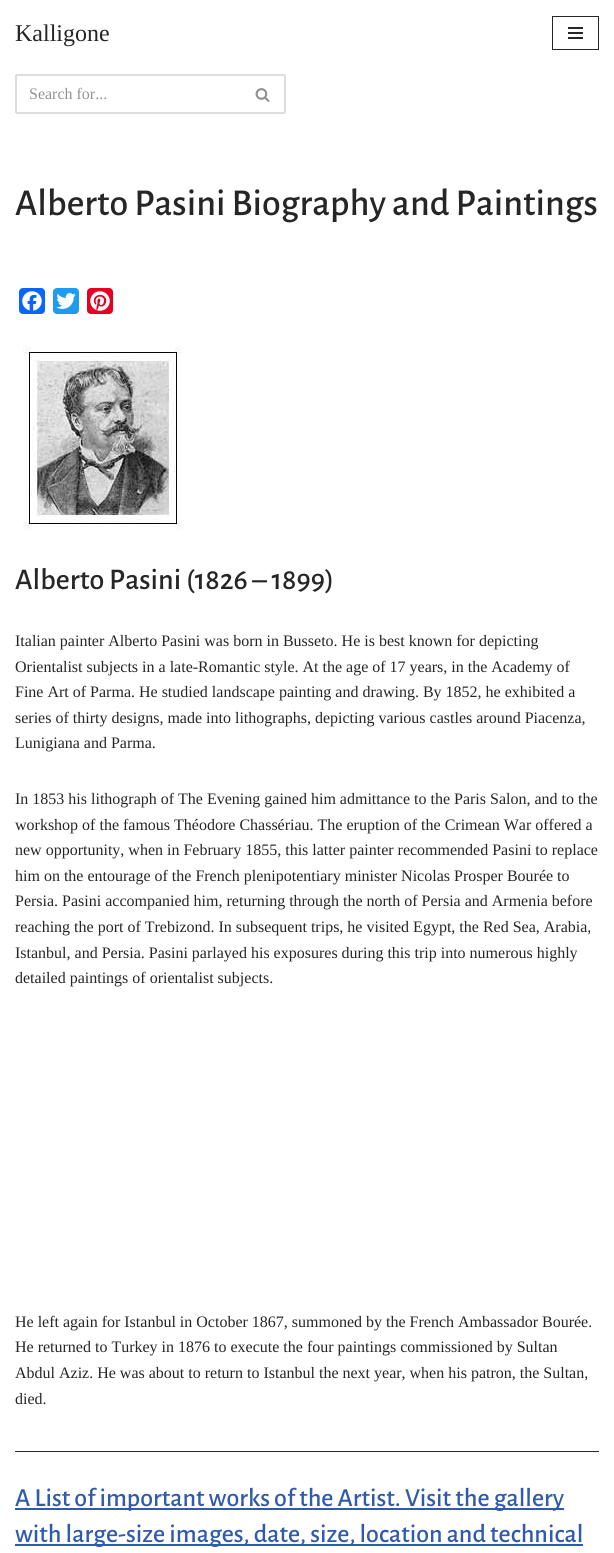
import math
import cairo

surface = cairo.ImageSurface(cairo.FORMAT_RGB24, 614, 1553)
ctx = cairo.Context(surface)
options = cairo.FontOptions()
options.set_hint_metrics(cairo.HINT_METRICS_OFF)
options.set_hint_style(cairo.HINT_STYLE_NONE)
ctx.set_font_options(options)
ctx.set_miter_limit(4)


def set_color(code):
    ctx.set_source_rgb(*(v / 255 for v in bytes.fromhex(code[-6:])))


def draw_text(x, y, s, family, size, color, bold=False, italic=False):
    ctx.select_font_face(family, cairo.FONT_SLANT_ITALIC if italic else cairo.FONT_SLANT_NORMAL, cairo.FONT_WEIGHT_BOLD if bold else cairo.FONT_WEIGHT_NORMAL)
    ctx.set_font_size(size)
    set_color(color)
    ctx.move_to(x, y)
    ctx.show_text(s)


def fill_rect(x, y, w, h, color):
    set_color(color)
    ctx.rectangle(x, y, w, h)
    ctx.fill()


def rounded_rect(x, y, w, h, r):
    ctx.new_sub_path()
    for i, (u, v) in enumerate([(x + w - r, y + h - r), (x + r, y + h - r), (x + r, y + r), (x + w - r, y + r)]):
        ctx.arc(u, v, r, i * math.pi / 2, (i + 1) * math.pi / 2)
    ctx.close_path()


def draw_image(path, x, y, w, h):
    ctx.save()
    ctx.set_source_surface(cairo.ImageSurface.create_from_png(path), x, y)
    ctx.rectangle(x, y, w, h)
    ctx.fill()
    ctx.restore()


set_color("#ffffff")
ctx.paint()
draw_text(15, 41, "Kalligone", "Liberation Serif", 24, "#272626")
ctx.rectangle(552.5, 16.5, 46, 33)
ctx.set_line_width(1)
ctx.stroke()
fill_rect(568, 27, 15, 2, "#272626")
fill_rect(568, 32, 15, 2, "#272626")
fill_rect(568, 37, 15, 2, "#272626")
fill_rect(16, 74, 269, 2, "#dddddd")
fill_rect(16, 112, 225, 2, "#dddddd")
fill_rect(15, 75, 2, 38, "#dddddd")
draw_text(29, 99, "Search for...", "Liberation Serif", 16, "#939393")
fill_rect(284, 75, 2, 38, "#dddddd")
fill_rect(241, 112, 44, 2, "#dddddd")
draw_image("assets/img1.png", 255, 88, 15, 14)
draw_text(15, 215, "Alberto Pasini Biography and Paintings", "Alegreya Sans Medium", 38, "#272626")
set_color("#0866ff")
rounded_rect(19, 288, 26, 26, 4)
ctx.fill()
draw_image("assets/img2.png", 22, 291, 20, 20)
set_color("#1d9bf0")
rounded_rect(53, 288, 26, 26, 4)
ctx.fill()
draw_image("assets/img3.png", 56, 293, 20, 16)
set_color("#e60023")
rounded_rect(87, 288, 26, 26, 4)
ctx.fill()
draw_image("assets/img4.png", 90, 291, 20, 20)
draw_image("assets/img5.png", 23, 346, 160, 184)
draw_text(15, 589, "Alberto Pasini (1826 – 1899)", "Alegreya Sans Medium", 30, "#272626")
draw_text(15, 646, "Italian painter Alberto Pasini was born in Busseto. He is best known for depicting", "Liberation Serif", 16, "#272626")
draw_text(15, 672, "Orientalist subjects in a late-Romantic style. At the age of 17 years, in the Academy of", "Liberation Serif", 16, "#272626")
draw_text(15, 697, "Fine Art of Parma. He studied landscape painting and drawing. By 1852, he exhibited a", "Liberation Serif", 16, "#272626")
draw_text(15, 723, "series of thirty designs, made into lithographs, depicting various castles around Piacenza,", "Liberation Serif", 16, "#272626")
draw_text(15, 748, "Lunigiana and Parma.", "Liberation Serif", 16, "#272626")
draw_text(15, 804, "In 1853 his lithograph of The Evening gained him admittance to the Paris Salon, and to the", "Liberation Serif", 16, "#272626")
draw_text(15, 830, "workshop of the famous Théodore Chassériau. The eruption of the Crimean War offered a", "Liberation Serif", 16, "#272626")
draw_text(15, 855, "new opportunity, when in February 1855, this latter painter recommended Pasini to replace", "Liberation Serif", 16, "#272626")
draw_text(15, 881, "him on the entourage of the French plenipotentiary minister Nicolas Prosper Bourée to", "Liberation Serif", 16, "#272626")
draw_text(15, 906, "Persia. Pasini accompanied him, returning through the north of Persia and Armenia before", "Liberation Serif", 16, "#272626")
draw_text(15, 932, "reaching the port of Trebizond. In subsequent trips, he visited Egypt, the Red Sea, Arabia,", "Liberation Serif", 16, "#272626")
draw_text(15, 958, "Istanbul, and Persia. Pasini parlayed his exposures during this trip into numerous highly", "Liberation Serif", 16, "#272626")
draw_text(15, 983, "detailed paintings of orientalist subjects.", "Liberation Serif", 16, "#272626")
draw_text(15, 1327, "He left again for Istanbul in October 1867, summoned by the French Ambassador Bourée.", "Liberation Serif", 16, "#272626")
draw_text(15, 1352, "He returned to Turkey in 1876 to execute the four paintings commissioned by Sultan", "Liberation Serif", 16, "#272626")
draw_text(15, 1378, "Abdul Aziz. He was about to return to Istanbul the next year, when his patron, the Sultan,", "Liberation Serif", 16, "#272626")
draw_text(15, 1404, "died.", "Liberation Serif", 16, "#272626")
fill_rect(15, 1451, 584, 1, "#272626")
fill_rect(15, 1508, 549, 2, "#2f5aae")
draw_text(15, 1506, "A List of important works of the Artist. Visit the gallery", "Alegreya Sans Medium", 26, "#2f5aae")
fill_rect(15, 1544, 568, 2, "#2f5aae")
draw_text(15, 1542, "with large-size images, date, size, location and technical", "Alegreya Sans Medium", 26, "#2f5aae")
surface.write_to_png("output.png")
